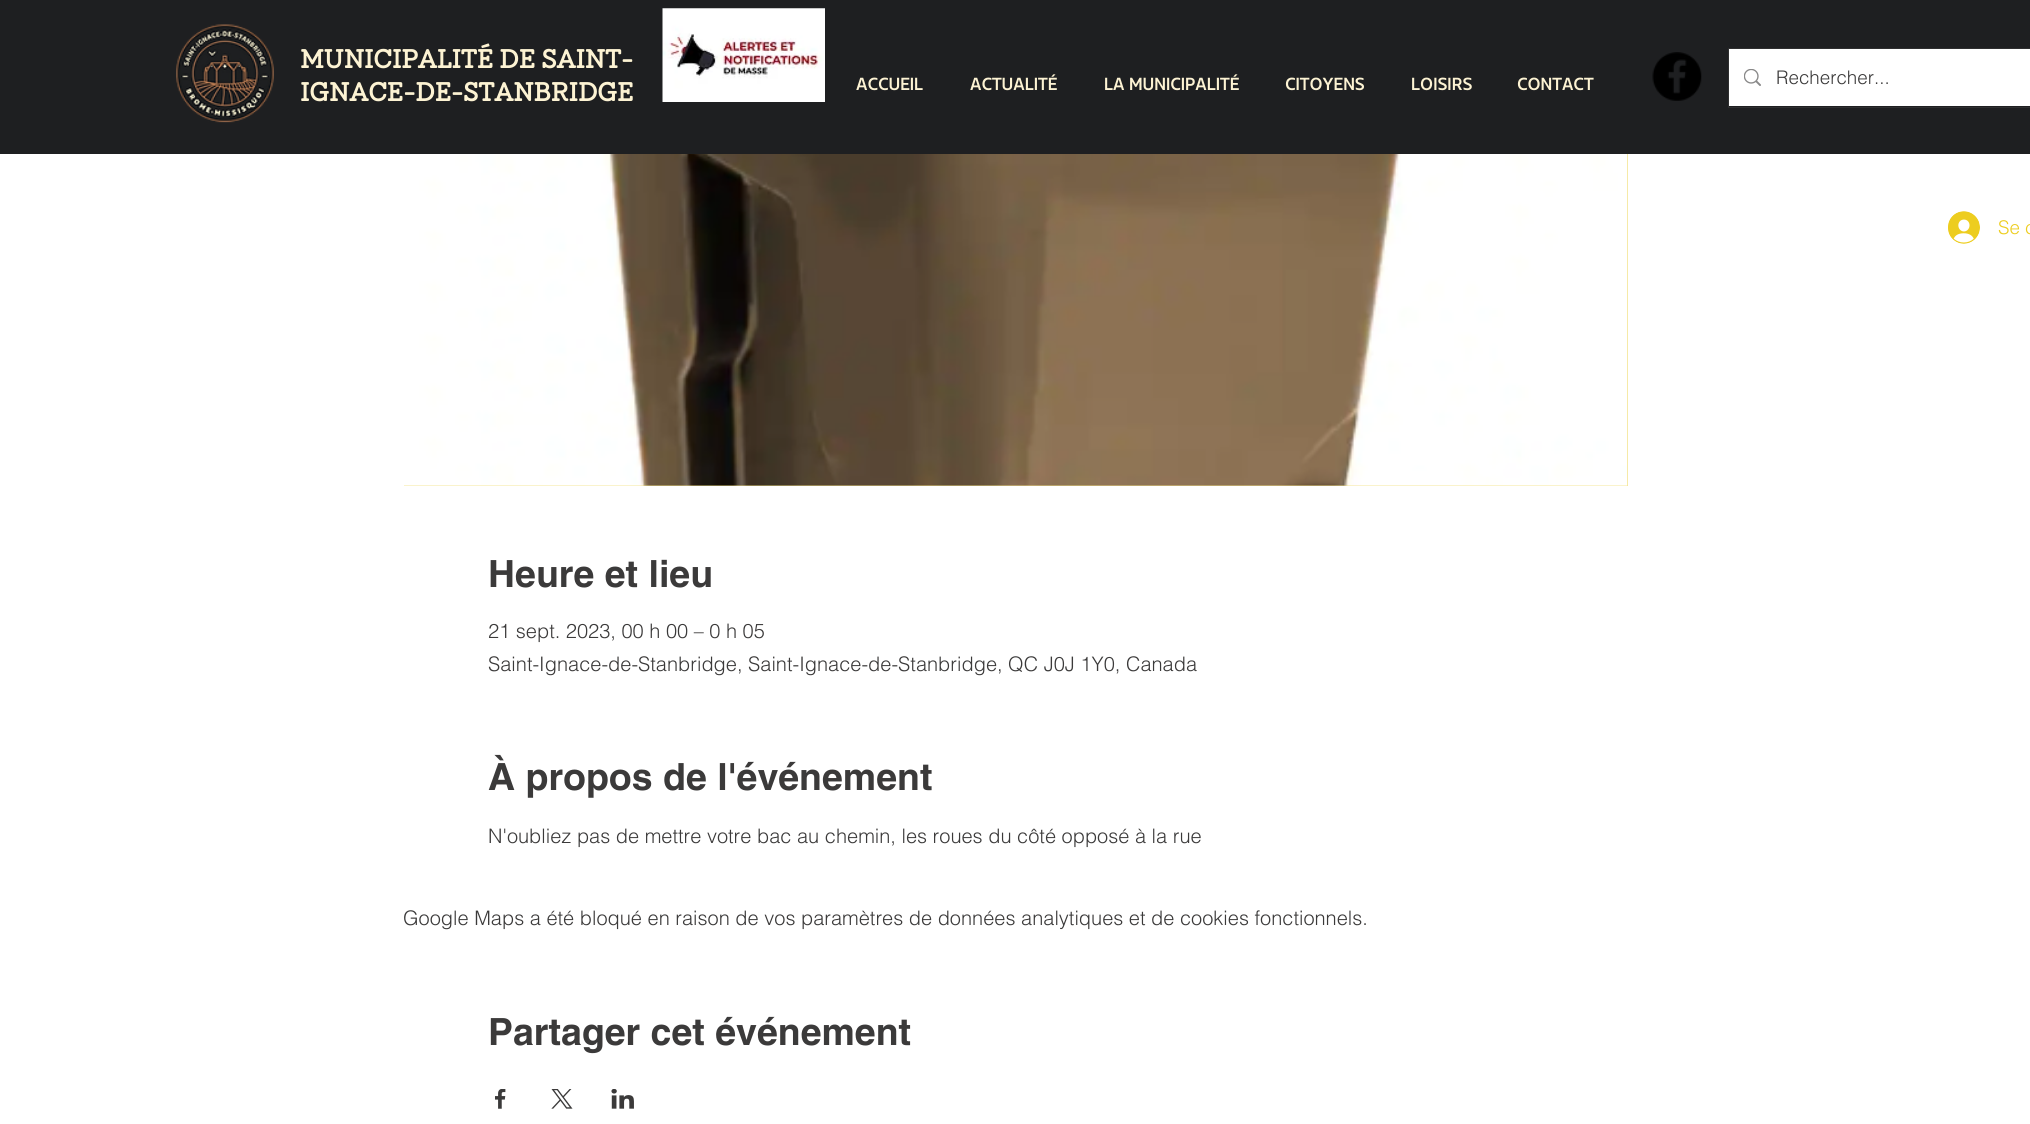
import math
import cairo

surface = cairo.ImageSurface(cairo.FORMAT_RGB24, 2030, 1124)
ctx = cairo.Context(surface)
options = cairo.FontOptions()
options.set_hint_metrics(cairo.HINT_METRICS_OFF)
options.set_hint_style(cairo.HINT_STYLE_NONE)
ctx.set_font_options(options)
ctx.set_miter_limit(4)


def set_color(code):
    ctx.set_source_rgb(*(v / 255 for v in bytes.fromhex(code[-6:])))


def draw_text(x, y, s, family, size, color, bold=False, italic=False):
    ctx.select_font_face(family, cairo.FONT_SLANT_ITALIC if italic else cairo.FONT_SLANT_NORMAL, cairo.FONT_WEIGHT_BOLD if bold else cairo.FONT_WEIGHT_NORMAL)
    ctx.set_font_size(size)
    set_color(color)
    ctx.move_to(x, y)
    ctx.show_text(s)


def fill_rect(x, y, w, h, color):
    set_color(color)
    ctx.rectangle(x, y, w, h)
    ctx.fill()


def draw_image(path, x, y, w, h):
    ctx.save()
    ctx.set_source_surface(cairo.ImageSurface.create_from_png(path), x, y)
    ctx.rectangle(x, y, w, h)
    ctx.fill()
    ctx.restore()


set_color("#ffffff")
ctx.paint()
fill_rect(0, 0, 2030, 154, "#1e1f21")
draw_image("assets/img1.png", 176, 24, 98, 99)
draw_text(300, 68, "MUNICIPALITÉ DE SAINT-", "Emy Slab", 28.75, "#fdf3d3", bold=True)
draw_text(300, 101, "IGNACE-DE-STANBRIDGE", "Emy Slab", 28.75, "#fdf3d3", bold=True)
draw_image("assets/img2.png", 662, 8, 163, 94)
draw_text(856, 90, "ACCUEIL", "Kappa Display", 17.5, "#fdf3d3", bold=True)
draw_text(970, 90, "ACTUALITÉ", "Kappa Display", 17.5, "#fdf3d3", bold=True)
draw_text(1104, 90, "LA MUNICIPALITÉ", "Kappa Display", 17.5, "#fdf3d3", bold=True)
draw_text(1285, 90, "CITOYENS", "Kappa Display", 17.5, "#fdf3d3", bold=True)
draw_text(1411, 90, "LOISIRS", "Kappa Display", 17.5, "#fdf3d3", bold=True)
draw_text(1517, 90, "CONTACT", "Kappa Display", 17.5, "#fdf3d3", bold=True)
draw_image("assets/img3.png", 1652, 52, 50, 49)
ctx.rectangle(1728.5, 48.5, 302, 59)
set_color("#2f2f30")
ctx.set_line_width(1)
ctx.stroke()
fill_rect(1729, 49, 301, 57, "#ffffff")
draw_image("assets/img4.png", 1744, 69, 17, 17)
draw_text(1776, 84, "Rechercher...", "helvetica Light", 18.75, "#3b3a3a")
draw_image("assets/img5.png", 1948, 211, 32, 33)
draw_text(1998, 234, "Se c", "helvetica Light", 18.75, "#edcd1f")
fill_rect(404, 154, 1224, 332, "#f3e389")
draw_image("assets/img6.png", 404, 154, 1224, 332)
draw_text(488, 587, "Heure et lieu", "helvetica", 37.5, "#3b3a3a", bold=True)
draw_text(488, 638, "21 sept. 2023, 00 h 00 – 0 h 05", "helvetica Light", 20, "#3b3a3a")
draw_text(488, 671, "Saint-Ignace-de-Stanbridge, Saint-Ignace-de-Stanbridge, QC J0J 1Y0, Canada", "helvetica Light", 20, "#3b3a3a")
draw_text(488, 790, "À propos de l'événement", "helvetica", 37.5, "#3b3a3a", bold=True)
draw_text(488, 843, "N'oubliez pas de mettre votre bac au chemin, les roues du côté opposé à la rue", "helvetica Light", 20, "#3b3a3a")
draw_text(403, 925, "Google Maps a été bloqué en raison de vos paramètres de données analytiques et de cookies fonctionnels.", "helvetica Light", 20, "#3b3a3a")
draw_text(488, 1045, "Partager cet événement", "helvetica", 37.5, "#3b3a3a", bold=True)
draw_image("assets/img7.png", 495, 1089, 11, 20)
draw_image("assets/img8.png", 551, 1089, 22, 20)
draw_image("assets/img9.png", 611, 1089, 23, 20)
surface.write_to_png("output.png")
